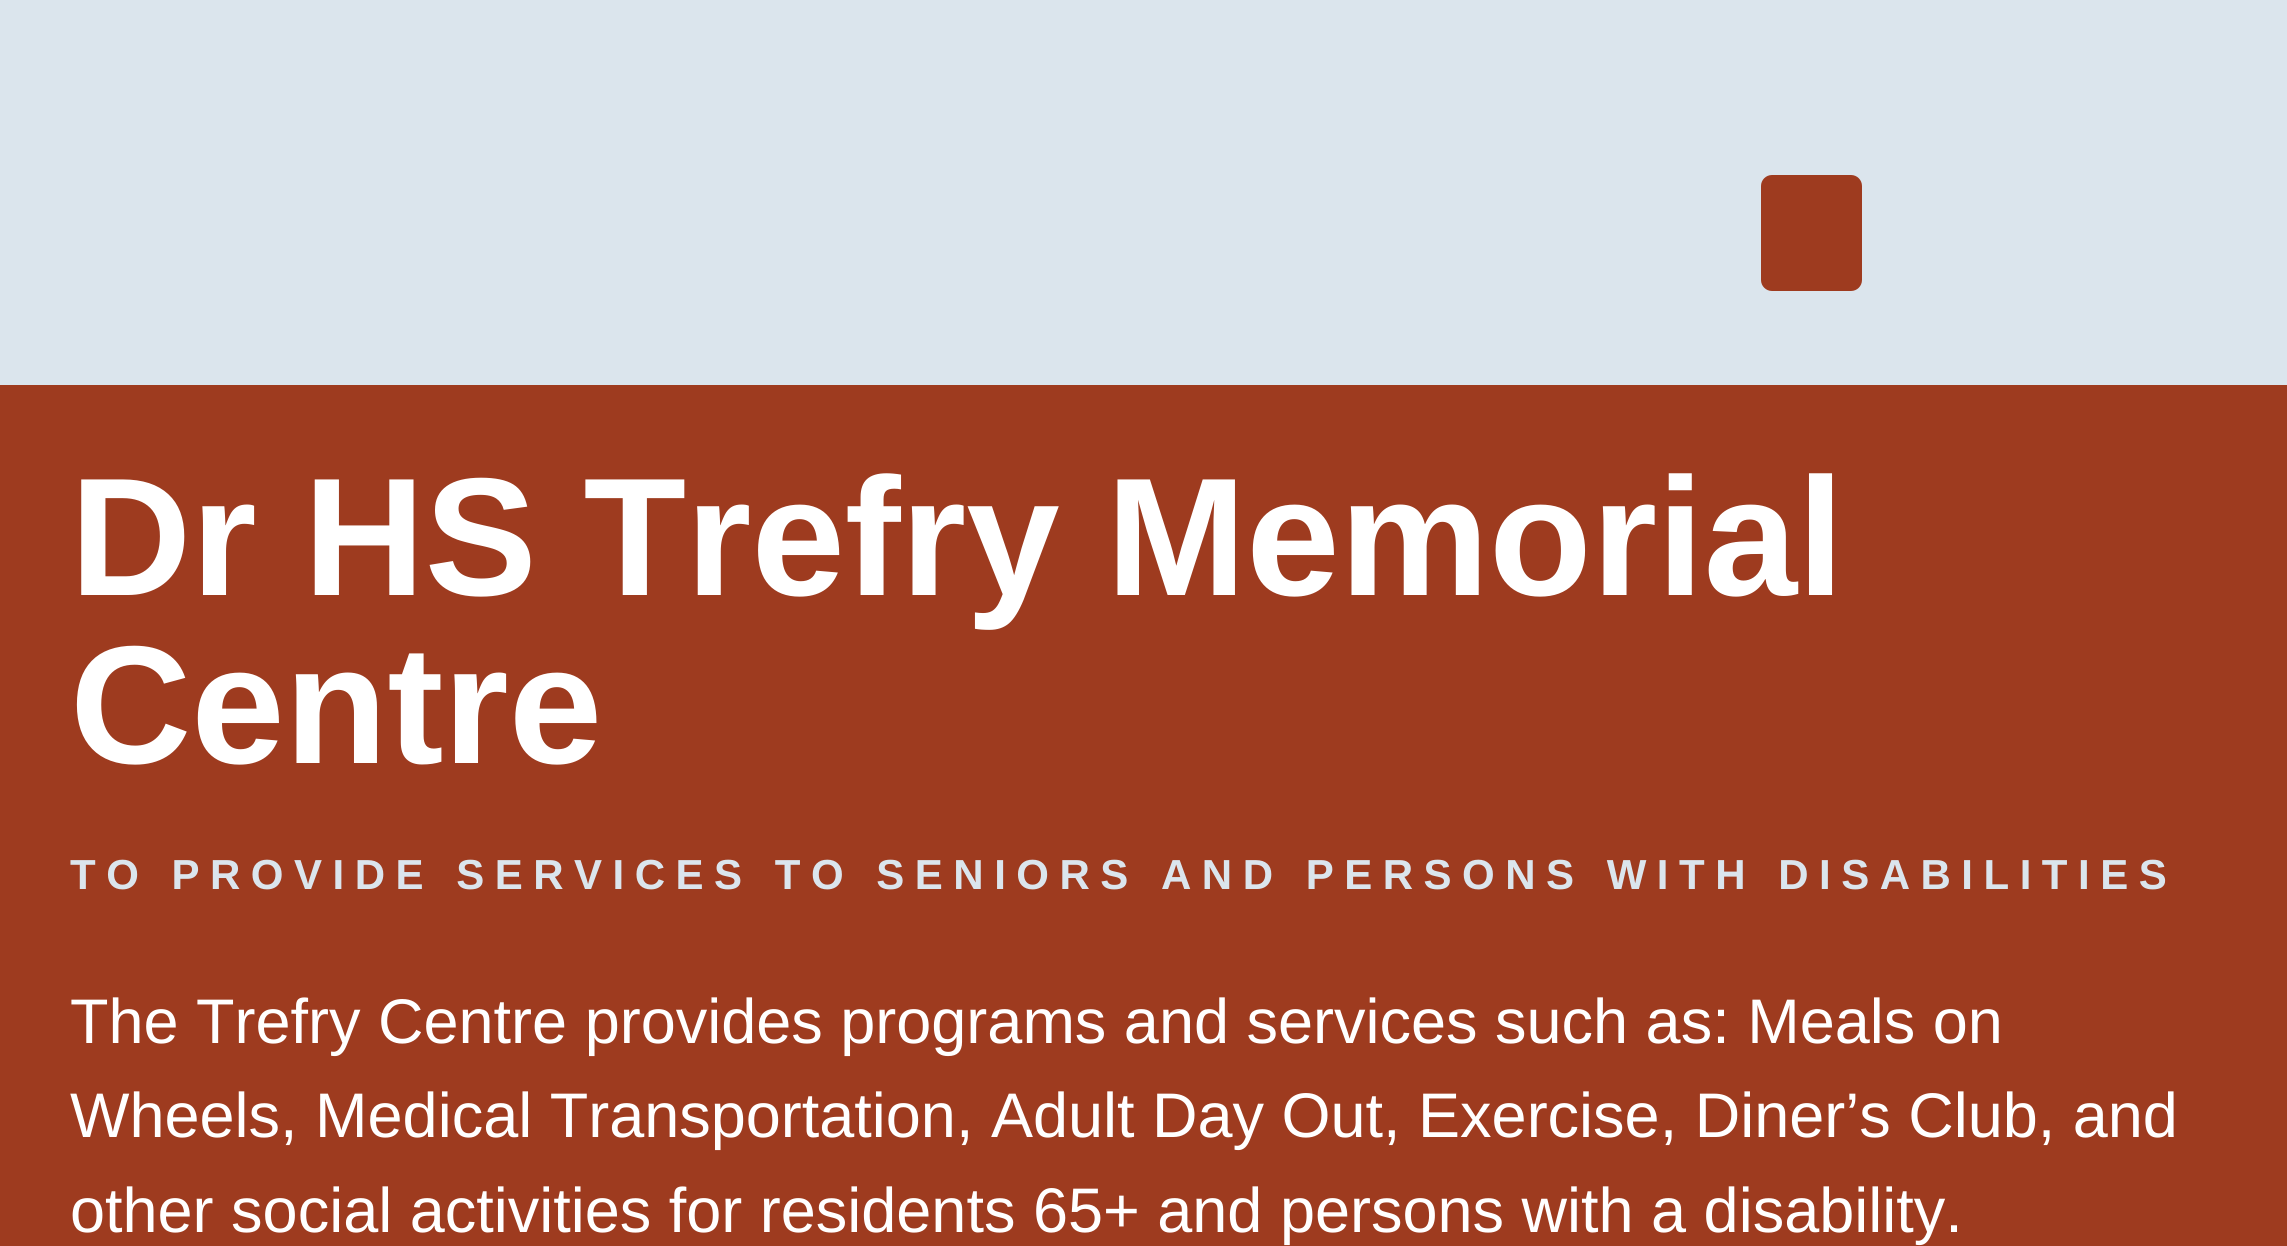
import math
import cairo

surface = cairo.ImageSurface(cairo.FORMAT_RGB24, 2287, 1246)
ctx = cairo.Context(surface)
options = cairo.FontOptions()
options.set_hint_metrics(cairo.HINT_METRICS_OFF)
options.set_hint_style(cairo.HINT_STYLE_NONE)
ctx.set_font_options(options)
ctx.set_miter_limit(4)


def set_color(code):
    ctx.set_source_rgb(*(v / 255 for v in bytes.fromhex(code[-6:])))


def draw_text(x, y, s, family, size, color, bold=False, italic=False):
    ctx.select_font_face(family, cairo.FONT_SLANT_ITALIC if italic else cairo.FONT_SLANT_NORMAL, cairo.FONT_WEIGHT_BOLD if bold else cairo.FONT_WEIGHT_NORMAL)
    ctx.set_font_size(size)
    set_color(color)
    ctx.move_to(x, y)
    ctx.show_text(s)


def draw_spaced(x, y, s, letter, word):
    ctx.move_to(x, y)
    for ch in s:
        ctx.show_text(ch)
        ctx.rel_move_to(letter + word * (ch == ' '), 0)


def fill_rect(x, y, w, h, color):
    set_color(color)
    ctx.rectangle(x, y, w, h)
    ctx.fill()


def rounded_rect(x, y, w, h, r):
    ctx.new_sub_path()
    for i, (u, v) in enumerate([(x + w - r, y + h - r), (x + r, y + h - r), (x + r, y + r), (x + w - r, y + r)]):
        ctx.arc(u, v, r, i * math.pi / 2, (i + 1) * math.pi / 2)
    ctx.close_path()


set_color("#dbe5ed")
ctx.paint()
set_color("#9e3b1f")
rounded_rect(1761, 175, 101, 116, 11)
ctx.fill()
fill_rect(0, 385, 2287, 861, "#9e3b1f")
draw_text(70, 595, "Dr HS Trefry Memorial", "Liberation Sans", 168, "#ffffff", bold=True)
draw_text(70, 763, "Centre", "Liberation Sans", 168, "#ffffff", bold=True)
ctx.set_font_size(42)
set_color("#dbe5ed")
draw_spaced(70, 889, "TO PROVIDE SERVICES TO SENIORS AND PERSONS WITH DISABILITIES", 10.5, 0)
draw_text(70, 1043, "The Trefry Centre provides programs and services such as: Meals on", "Liberation Sans", 63, "#ffffff")
draw_text(70, 1137, "Wheels, Medical Transportation, Adult Day Out, Exercise, Diner’s Club, and", "Liberation Sans", 63, "#ffffff")
draw_text(70, 1232, "other social activities for residents 65+ and persons with a disability.", "Liberation Sans", 63, "#ffffff")
surface.write_to_png("output.png")
